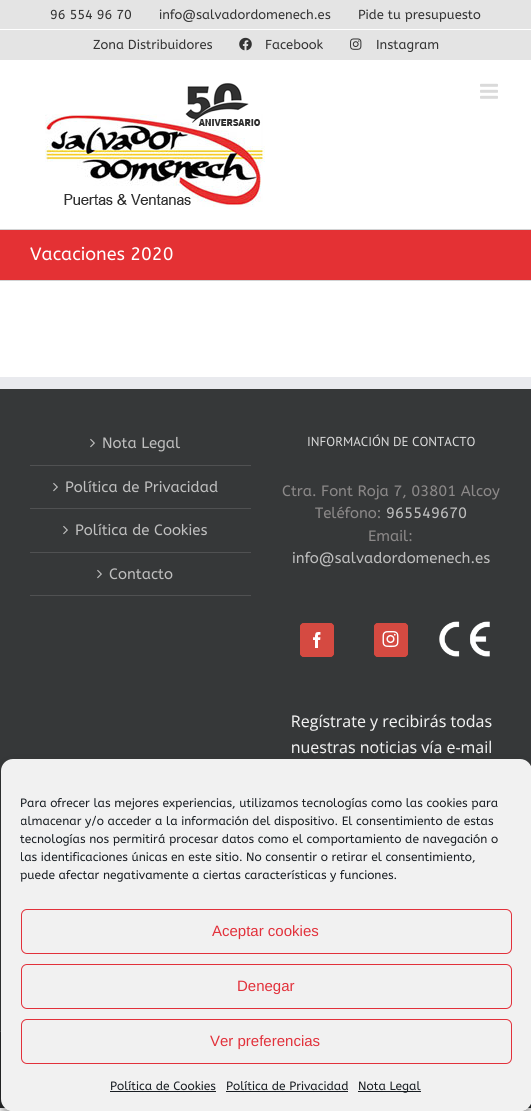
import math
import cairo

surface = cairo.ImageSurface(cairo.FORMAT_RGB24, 531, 1111)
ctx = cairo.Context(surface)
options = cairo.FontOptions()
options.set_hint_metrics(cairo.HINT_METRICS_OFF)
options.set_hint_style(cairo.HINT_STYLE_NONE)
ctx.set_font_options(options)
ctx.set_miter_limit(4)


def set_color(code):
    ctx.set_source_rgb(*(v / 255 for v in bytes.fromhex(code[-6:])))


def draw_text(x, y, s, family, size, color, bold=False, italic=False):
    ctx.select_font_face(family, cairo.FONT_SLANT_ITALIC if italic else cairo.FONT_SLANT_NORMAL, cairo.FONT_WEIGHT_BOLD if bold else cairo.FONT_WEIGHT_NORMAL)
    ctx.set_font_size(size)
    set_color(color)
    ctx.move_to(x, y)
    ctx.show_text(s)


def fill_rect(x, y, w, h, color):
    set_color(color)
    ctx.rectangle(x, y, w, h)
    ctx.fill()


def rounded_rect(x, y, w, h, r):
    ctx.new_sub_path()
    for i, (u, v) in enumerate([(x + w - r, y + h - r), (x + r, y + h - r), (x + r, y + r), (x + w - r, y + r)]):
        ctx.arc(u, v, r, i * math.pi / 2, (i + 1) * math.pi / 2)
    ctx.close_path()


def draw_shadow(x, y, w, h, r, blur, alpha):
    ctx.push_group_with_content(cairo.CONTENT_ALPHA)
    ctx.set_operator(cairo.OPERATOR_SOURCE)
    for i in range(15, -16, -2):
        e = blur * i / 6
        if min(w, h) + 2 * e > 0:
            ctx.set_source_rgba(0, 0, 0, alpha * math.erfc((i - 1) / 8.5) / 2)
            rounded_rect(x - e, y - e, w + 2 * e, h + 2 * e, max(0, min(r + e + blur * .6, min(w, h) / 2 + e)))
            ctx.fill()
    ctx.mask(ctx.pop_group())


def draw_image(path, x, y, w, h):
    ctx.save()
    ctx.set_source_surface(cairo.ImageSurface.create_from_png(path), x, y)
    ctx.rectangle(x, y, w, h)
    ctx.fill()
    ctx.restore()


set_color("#ffffff")
ctx.paint()
fill_rect(0, 0, 531, 60, "#e4e4e4")
draw_text(50, 19, "96 554 96 70", "ABeeZee", 13, "#333333")
draw_text(159, 19, "info@salvadordomenech.es", "ABeeZee", 13, "#333333")
draw_text(358, 19, "Pide tu presupuesto", "ABeeZee", 13, "#333333")
fill_rect(0, 29, 531, 1, "#ffffff")
draw_text(93, 49, "Zona Distribuidores", "ABeeZee", 13, "#333333")
draw_image("assets/img1.png", 239, 37, 13, 14)
draw_text(265, 49, "Facebook", "ABeeZee", 13, "#333333")
draw_image("assets/img2.png", 350, 38, 12, 12)
draw_text(376, 49, "Instagram", "ABeeZee", 13, "#333333")
draw_image("assets/img3.png", 45, 83, 220, 124)
draw_image("assets/img4.png", 480, 83, 18, 16)
fill_rect(0, 230, 531, 50, "#e43134")
fill_rect(0, 229, 531, 1, "#d2d3d4")
fill_rect(0, 280, 531, 1, "#d2d3d4")
draw_text(30, 260, "Vacaciones 2020", "ABeeZee", 18, "#ffffff")
fill_rect(0, 389, 531, 642, "#363839")
fill_rect(0, 377, 531, 12, "#e9eaee")
fill_rect(30, 465, 221, 1, "#505152")
draw_image("assets/img5.png", 90, 438, 5, 10)
draw_text(102, 448, "Nota Legal", "ABeeZee", 15, "#bfbfbf")
fill_rect(30, 508, 221, 1, "#505152")
draw_image("assets/img5.png", 53, 482, 5, 10)
draw_text(65, 492, "Política de Privacidad", "ABeeZee", 15, "#bfbfbf")
fill_rect(30, 552, 221, 1, "#505152")
draw_image("assets/img5.png", 63, 525, 5, 10)
draw_text(75, 535, "Política de Cookies", "ABeeZee", 15, "#bfbfbf")
fill_rect(30, 595, 221, 1, "#505152")
draw_image("assets/img5.png", 97, 569, 5, 10)
draw_text(109, 579, "Contacto", "ABeeZee", 15, "#bfbfbf")
draw_text(307, 446, "INFORMACIÓN DE CONTACTO", "PT Sans", 13, "#dddddd")
draw_text(282, 496, "Ctra. Font Roja 7, 03801 Alcoy", "ABeeZee", 15, "#8c8989")
draw_text(315, 518, "Teléfono:", "ABeeZee", 15, "#8c8989")
draw_text(386, 518, "965549670", "ABeeZee", 15, "#bfbfbf")
draw_text(368, 541, "Email:", "ABeeZee", 15, "#8c8989")
draw_text(292, 563, "info@salvadordomenech.es", "ABeeZee", 15, "#bfbfbf")
draw_image("assets/img6.png", 300, 623, 34, 34)
draw_image("assets/img7.png", 374, 623, 34, 34)
draw_image("assets/img8.png", 439, 621, 51, 36)
draw_image("assets/img9.png", 292, 714, 200, 40)
fill_rect(0, 1032, 531, 76, "#282a2b")
fill_rect(0, 1031, 1, 1, "#4b4c4d")
ctx.save()
ctx.set_fill_rule(cairo.FILL_RULE_EVEN_ODD)
ctx.new_path()
ctx.move_to(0, 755)
ctx.line_to(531, 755)
ctx.line_to(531, 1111)
ctx.line_to(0, 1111)
ctx.close_path()
ctx.move_to(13, 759)
ctx.line_to(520, 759)
ctx.curve_to(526.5, 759, 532, 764.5, 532, 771)
ctx.line_to(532, 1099)
ctx.curve_to(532, 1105.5, 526.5, 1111, 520, 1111)
ctx.line_to(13, 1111)
ctx.curve_to(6.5, 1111, 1, 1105.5, 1, 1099)
ctx.line_to(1, 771)
ctx.curve_to(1, 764.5, 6.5, 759, 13, 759)
ctx.close_path()
ctx.clip()
set_color("#000000")
draw_shadow(1, 765, 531, 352, 12, 3, 0.23)
ctx.restore()
ctx.save()
ctx.set_fill_rule(cairo.FILL_RULE_EVEN_ODD)
ctx.new_path()
ctx.move_to(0, 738)
ctx.line_to(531, 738)
ctx.line_to(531, 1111)
ctx.line_to(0, 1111)
ctx.close_path()
ctx.move_to(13, 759)
ctx.line_to(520, 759)
ctx.curve_to(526.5, 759, 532, 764.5, 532, 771)
ctx.line_to(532, 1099)
ctx.curve_to(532, 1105.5, 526.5, 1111, 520, 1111)
ctx.line_to(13, 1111)
ctx.curve_to(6.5, 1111, 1, 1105.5, 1, 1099)
ctx.line_to(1, 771)
ctx.curve_to(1, 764.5, 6.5, 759, 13, 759)
ctx.close_path()
ctx.clip()
set_color("#000000")
draw_shadow(1, 769, 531, 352, 12, 10, 0.19)
ctx.restore()
set_color("#f1f1f1")
rounded_rect(1, 759, 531, 352, 12)
ctx.fill()
draw_text(20, 807, "Para ofrecer las mejores experiencias, utilizamos tecnologías como las cookies para", "ABeeZee", 12, "#191e23")
ctx.save()
ctx.rectangle(21, 794, 491, 95)
ctx.clip()
draw_text(20, 825, "almacenar y/o acceder a la información del dispositivo. El consentimiento de estas", "ABeeZee", 12, "#191e23")
ctx.restore()
draw_text(20, 843, "tecnologías nos permitirá procesar datos como el comportamiento de navegación o", "ABeeZee", 12, "#191e23")
ctx.save()
ctx.rectangle(21, 794, 491, 95)
ctx.clip()
draw_text(20, 861, "las identificaciones únicas en este sitio. No consentir o retirar el consentimiento,", "ABeeZee", 12, "#191e23")
ctx.restore()
draw_text(20, 879, "puede afectar negativamente a ciertas características y funciones.", "ABeeZee", 12, "#191e23")
rounded_rect(21.5, 909.5, 490, 44, 5.5)
set_color("#e2313b")
ctx.set_line_width(1)
ctx.stroke()
draw_text(212, 936, "Aceptar cookies", "Liberation Sans", 15, "#e2313b")
rounded_rect(21.5, 964.5, 490, 44, 5.5)
ctx.stroke()
draw_text(237, 991, "Denegar", "Liberation Sans", 15, "#e2313b")
rounded_rect(21.5, 1019.5, 490, 44, 5.5)
ctx.stroke()
draw_text(210, 1046, "Ver preferencias", "Liberation Sans", 15, "#e2313b")
draw_text(110, 1090, "Política de Cookies", "ABeeZee", 12, "#191e23")
fill_rect(110, 1091, 106, 1, "#191e23")
draw_text(226, 1090, "Política de Privacidad", "ABeeZee", 12, "#191e23")
fill_rect(226, 1091, 122, 1, "#191e23")
fill_rect(358, 1091, 63, 1, "#191e23")
draw_text(358, 1090, "Nota Legal", "ABeeZee", 12, "#191e23")
surface.write_to_png("output.png")
